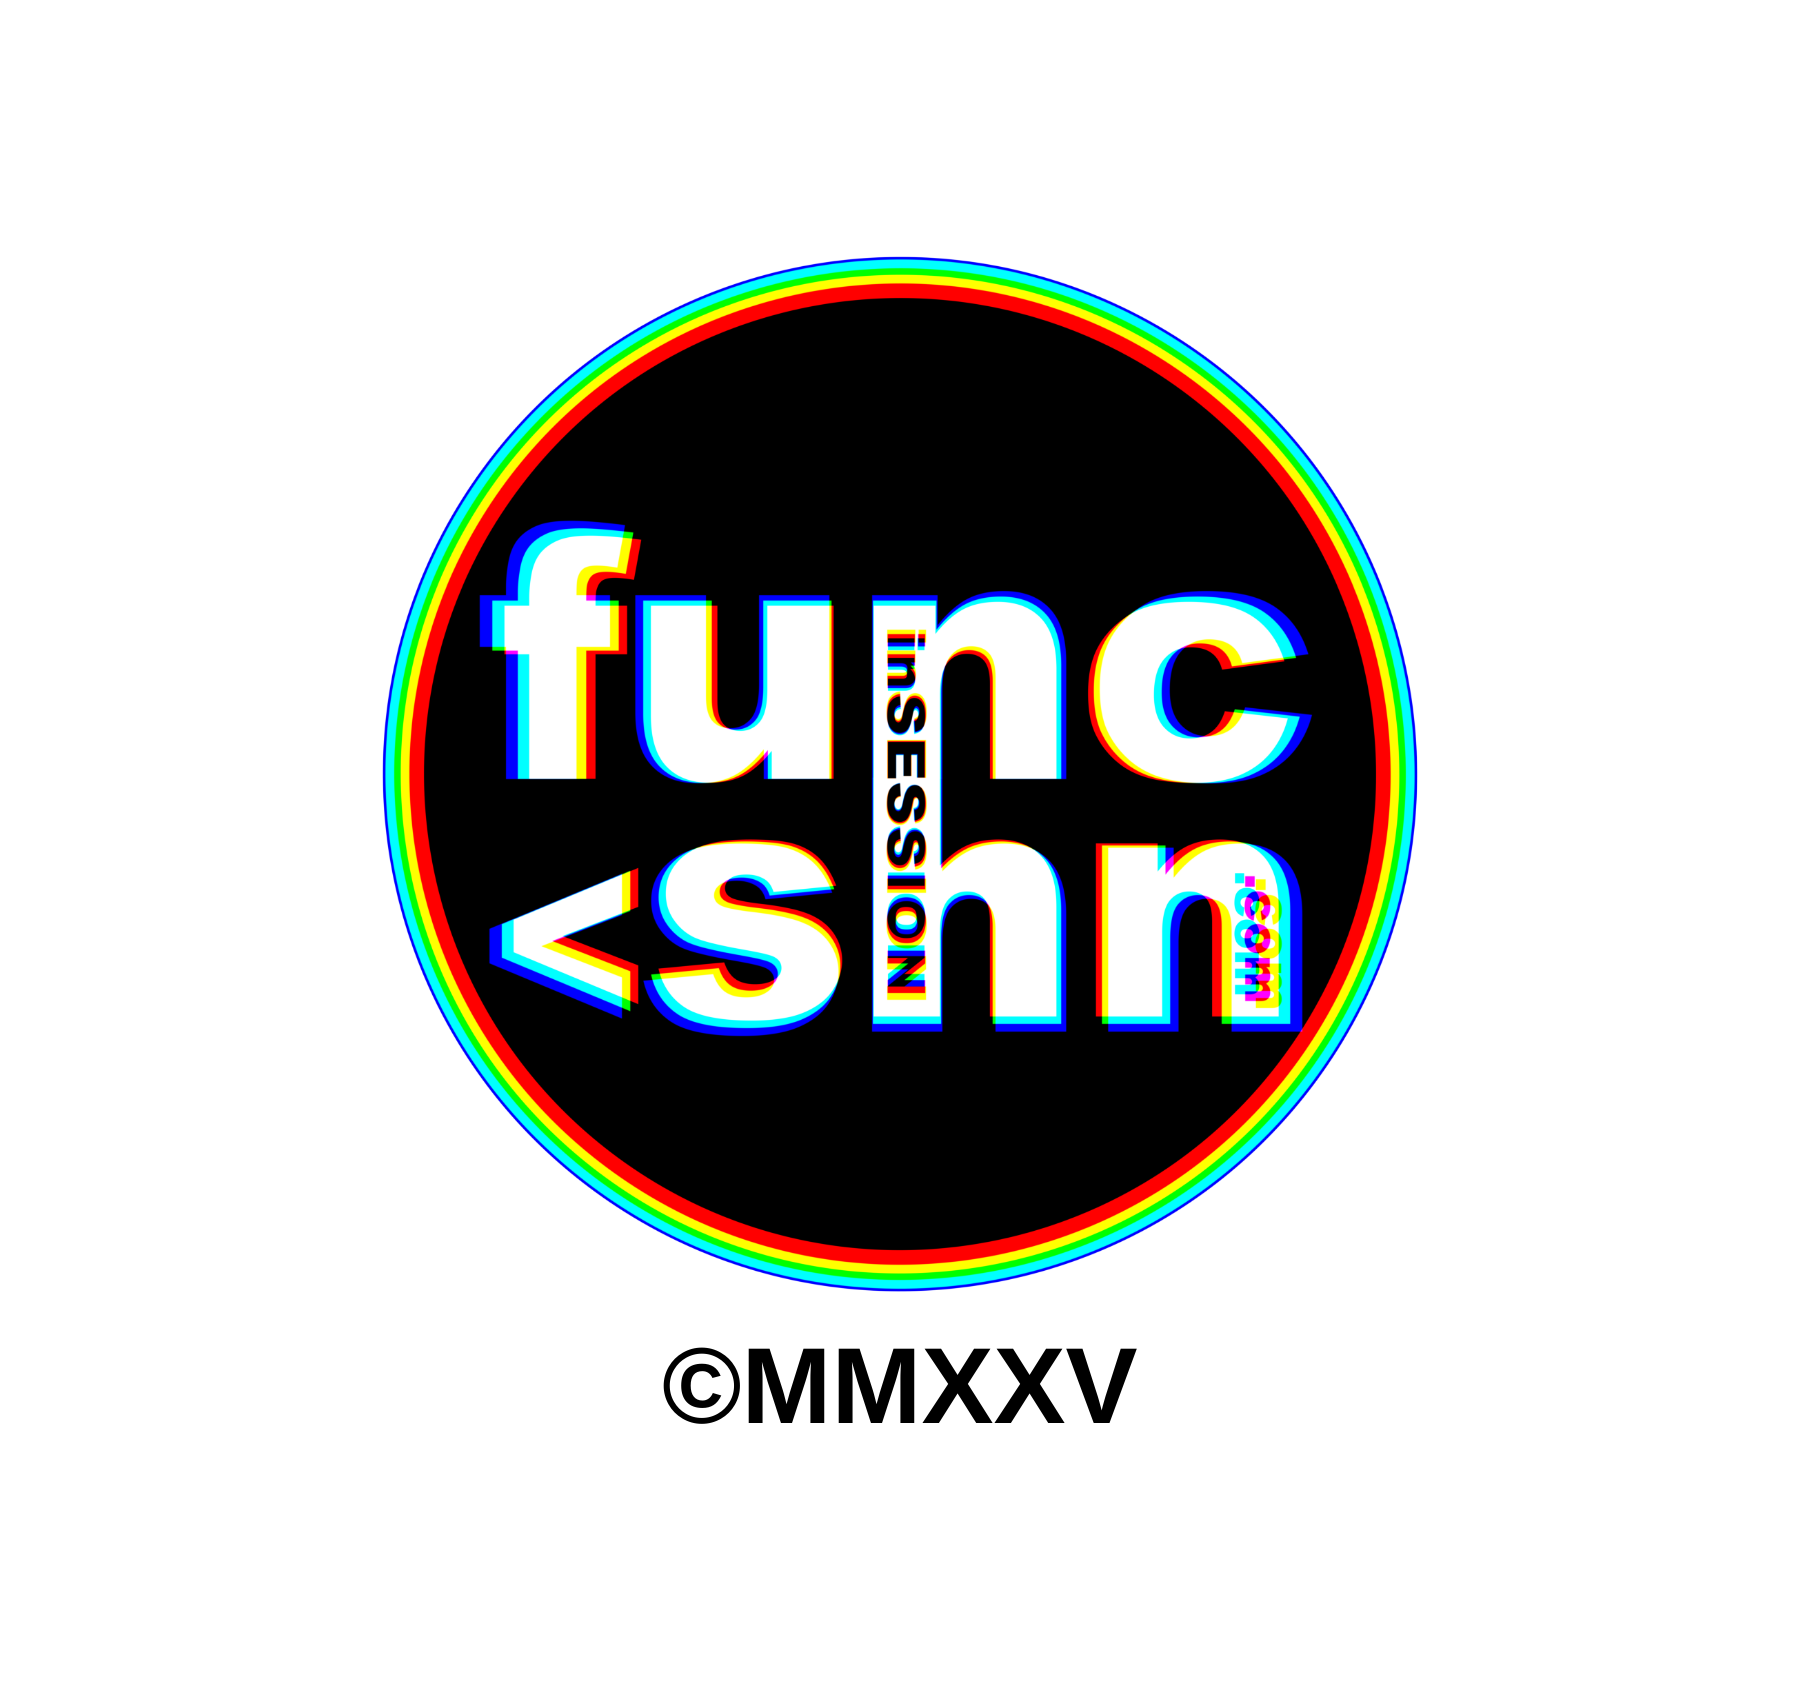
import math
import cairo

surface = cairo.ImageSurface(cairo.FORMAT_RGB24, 1800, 1706)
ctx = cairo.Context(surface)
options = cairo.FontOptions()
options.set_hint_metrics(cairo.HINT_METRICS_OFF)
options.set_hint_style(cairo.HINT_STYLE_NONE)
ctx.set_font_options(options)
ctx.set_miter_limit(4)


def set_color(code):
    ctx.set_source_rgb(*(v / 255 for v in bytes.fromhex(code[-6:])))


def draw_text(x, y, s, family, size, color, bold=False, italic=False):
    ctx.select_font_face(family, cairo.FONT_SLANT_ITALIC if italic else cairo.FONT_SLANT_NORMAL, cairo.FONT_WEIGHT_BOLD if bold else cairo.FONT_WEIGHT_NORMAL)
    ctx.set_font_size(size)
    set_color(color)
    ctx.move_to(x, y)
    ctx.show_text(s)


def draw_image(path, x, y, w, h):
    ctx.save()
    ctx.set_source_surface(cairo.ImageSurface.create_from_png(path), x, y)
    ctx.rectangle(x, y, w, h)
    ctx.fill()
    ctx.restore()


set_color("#ffffff")
ctx.paint()
draw_image("assets/img1.png", 382, 256, 1036, 1036)
draw_text(662, 1423, "©MMXXV", "Liberation Sans", 108, "#000000", bold=True)
surface.write_to_png("output.png")
